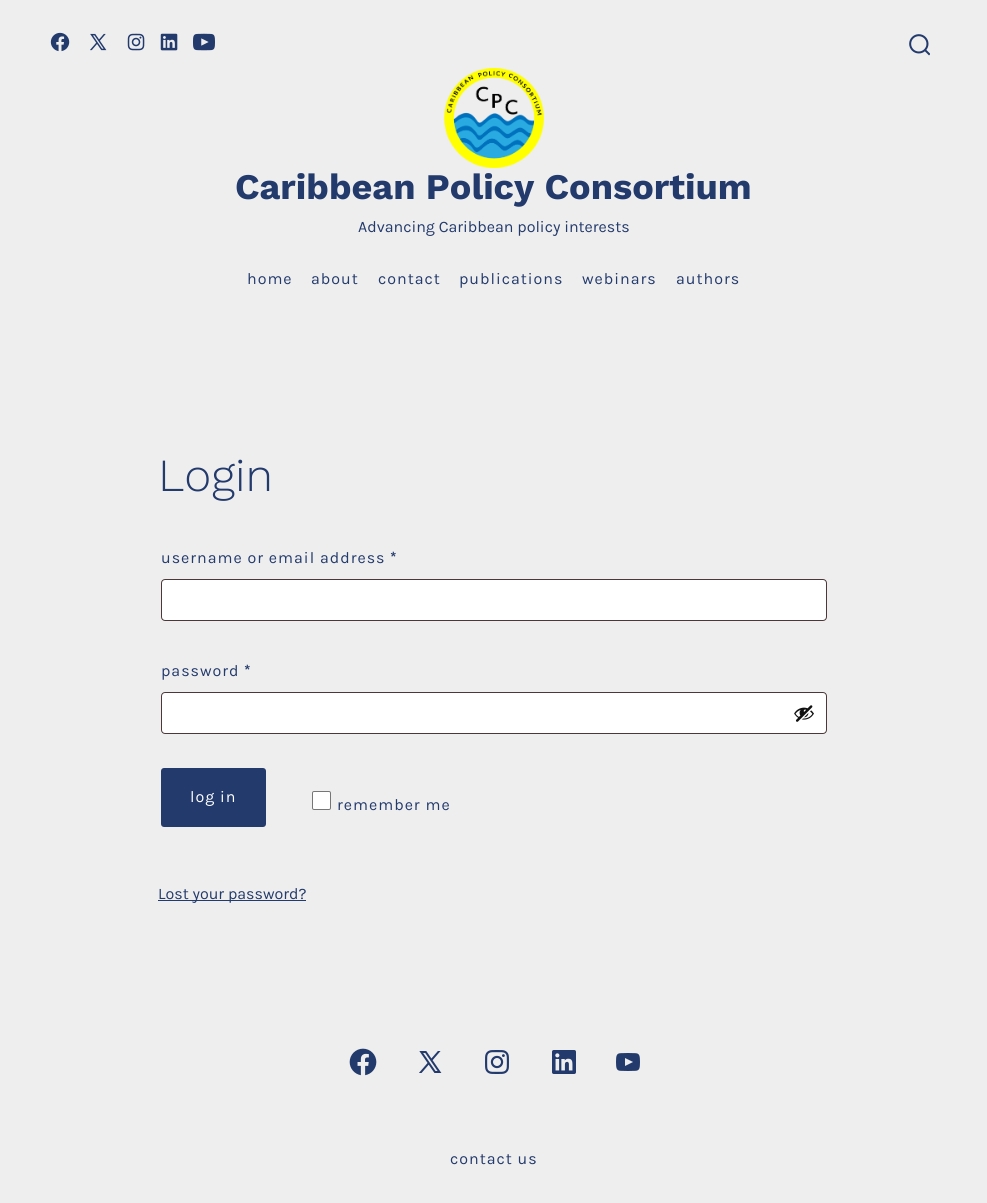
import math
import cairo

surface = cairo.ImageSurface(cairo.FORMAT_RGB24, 987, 1203)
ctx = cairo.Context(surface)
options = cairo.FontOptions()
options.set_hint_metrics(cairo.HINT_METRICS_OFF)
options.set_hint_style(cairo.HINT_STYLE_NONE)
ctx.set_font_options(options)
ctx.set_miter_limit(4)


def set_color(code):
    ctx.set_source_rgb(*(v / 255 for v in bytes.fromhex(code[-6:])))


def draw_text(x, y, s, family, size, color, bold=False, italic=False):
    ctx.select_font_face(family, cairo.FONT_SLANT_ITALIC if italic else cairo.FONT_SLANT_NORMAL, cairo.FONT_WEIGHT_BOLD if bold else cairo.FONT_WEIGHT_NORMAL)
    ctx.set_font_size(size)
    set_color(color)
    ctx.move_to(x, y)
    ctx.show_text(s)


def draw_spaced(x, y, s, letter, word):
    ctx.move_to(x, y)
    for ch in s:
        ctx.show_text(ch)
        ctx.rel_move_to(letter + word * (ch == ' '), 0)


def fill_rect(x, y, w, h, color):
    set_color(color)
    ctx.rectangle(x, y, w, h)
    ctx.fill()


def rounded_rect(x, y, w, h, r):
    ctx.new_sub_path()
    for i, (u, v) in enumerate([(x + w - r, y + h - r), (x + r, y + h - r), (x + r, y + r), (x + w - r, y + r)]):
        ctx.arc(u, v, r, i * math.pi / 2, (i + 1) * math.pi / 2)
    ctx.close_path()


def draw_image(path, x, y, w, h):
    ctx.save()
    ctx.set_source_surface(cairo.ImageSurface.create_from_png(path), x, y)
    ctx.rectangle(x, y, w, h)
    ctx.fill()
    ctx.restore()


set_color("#eeeeee")
ctx.paint()
draw_image("assets/img1.png", 50, 32, 20, 20)
draw_image("assets/img2.png", 90, 33, 17, 18)
draw_image("assets/img3.png", 127, 33, 18, 18)
draw_image("assets/img4.png", 160, 33, 18, 18)
draw_image("assets/img5.png", 193, 33, 22, 18)
draw_image("assets/img6.png", 909, 34, 21, 22)
draw_image("assets/img7.png", 444, 68, 100, 100)
draw_text(235, 199, "Caribbean Policy Consortium", "Work Sans", 36, "#233a6c", bold=True)
draw_text(358, 232, "Advancing Caribbean policy interests", "Karla", 16, "#233a6c")
draw_spaced(247, 284, "home", 1, 0)
draw_spaced(311, 284, "about", 1, 0)
draw_spaced(378, 284, "contact", 1, 0)
draw_spaced(459, 284, "publications", 1, 0)
draw_spaced(582, 284, "webinars", 1, 0)
draw_spaced(676, 284, "authors", 1, 0)
draw_text(158, 491, "Login", "Work Sans Light", 46, "#233a6c")
ctx.select_font_face("Karla")
ctx.set_font_size(16)
draw_spaced(161, 563, "username or email address", 1, 0)
ctx.select_font_face("Karla", cairo.FONT_SLANT_NORMAL, cairo.FONT_WEIGHT_BOLD)
draw_spaced(390, 563, "*", 1, 0)
set_color("#ffffff")
rounded_rect(161, 579, 666, 42, 4)
ctx.fill()
rounded_rect(161.5, 579.5, 665, 41, 3.5)
ctx.set_source_rgba(0.125, 0.027, 0.027, 0.8)
ctx.set_line_width(1)
ctx.stroke()
ctx.select_font_face("Karla")
set_color("#233a6c")
draw_spaced(161, 676, "password", 1, 0)
ctx.select_font_face("Karla", cairo.FONT_SLANT_NORMAL, cairo.FONT_WEIGHT_BOLD)
draw_spaced(244, 676, "*", 1, 0)
set_color("#ffffff")
rounded_rect(161, 692, 666, 42, 4)
ctx.fill()
rounded_rect(161.5, 692.5, 665, 41, 3.5)
ctx.set_source_rgba(0.125, 0.027, 0.027, 0.8)
ctx.stroke()
draw_image("assets/img8.png", 794, 705, 20, 17)
set_color("#233a6c")
rounded_rect(161, 768, 105, 59, 3)
ctx.fill()
ctx.select_font_face("Karla")
set_color("#ffffff")
draw_spaced(190, 802, "log in", 1, 0)
rounded_rect(312.5, 791.5, 18, 18, 1.5)
ctx.fill_preserve()
set_color("#767676")
ctx.stroke()
set_color("#233a6c")
draw_spaced(337, 810, "remember me", 1, 0)
fill_rect(158, 900, 148, 1, "#233a6c")
draw_text(158, 899, "Lost your password?", "Karla", 16, "#233a6c")
draw_image("assets/img9.png", 349, 1048, 28, 28)
draw_image("assets/img10.png", 419, 1051, 23, 22)
draw_image("assets/img11.png", 485, 1050, 24, 24)
draw_image("assets/img12.png", 552, 1050, 24, 24)
draw_image("assets/img13.png", 616, 1053, 24, 18)
draw_spaced(450, 1164, "contact us", 1, 0)
surface.write_to_png("output.png")
